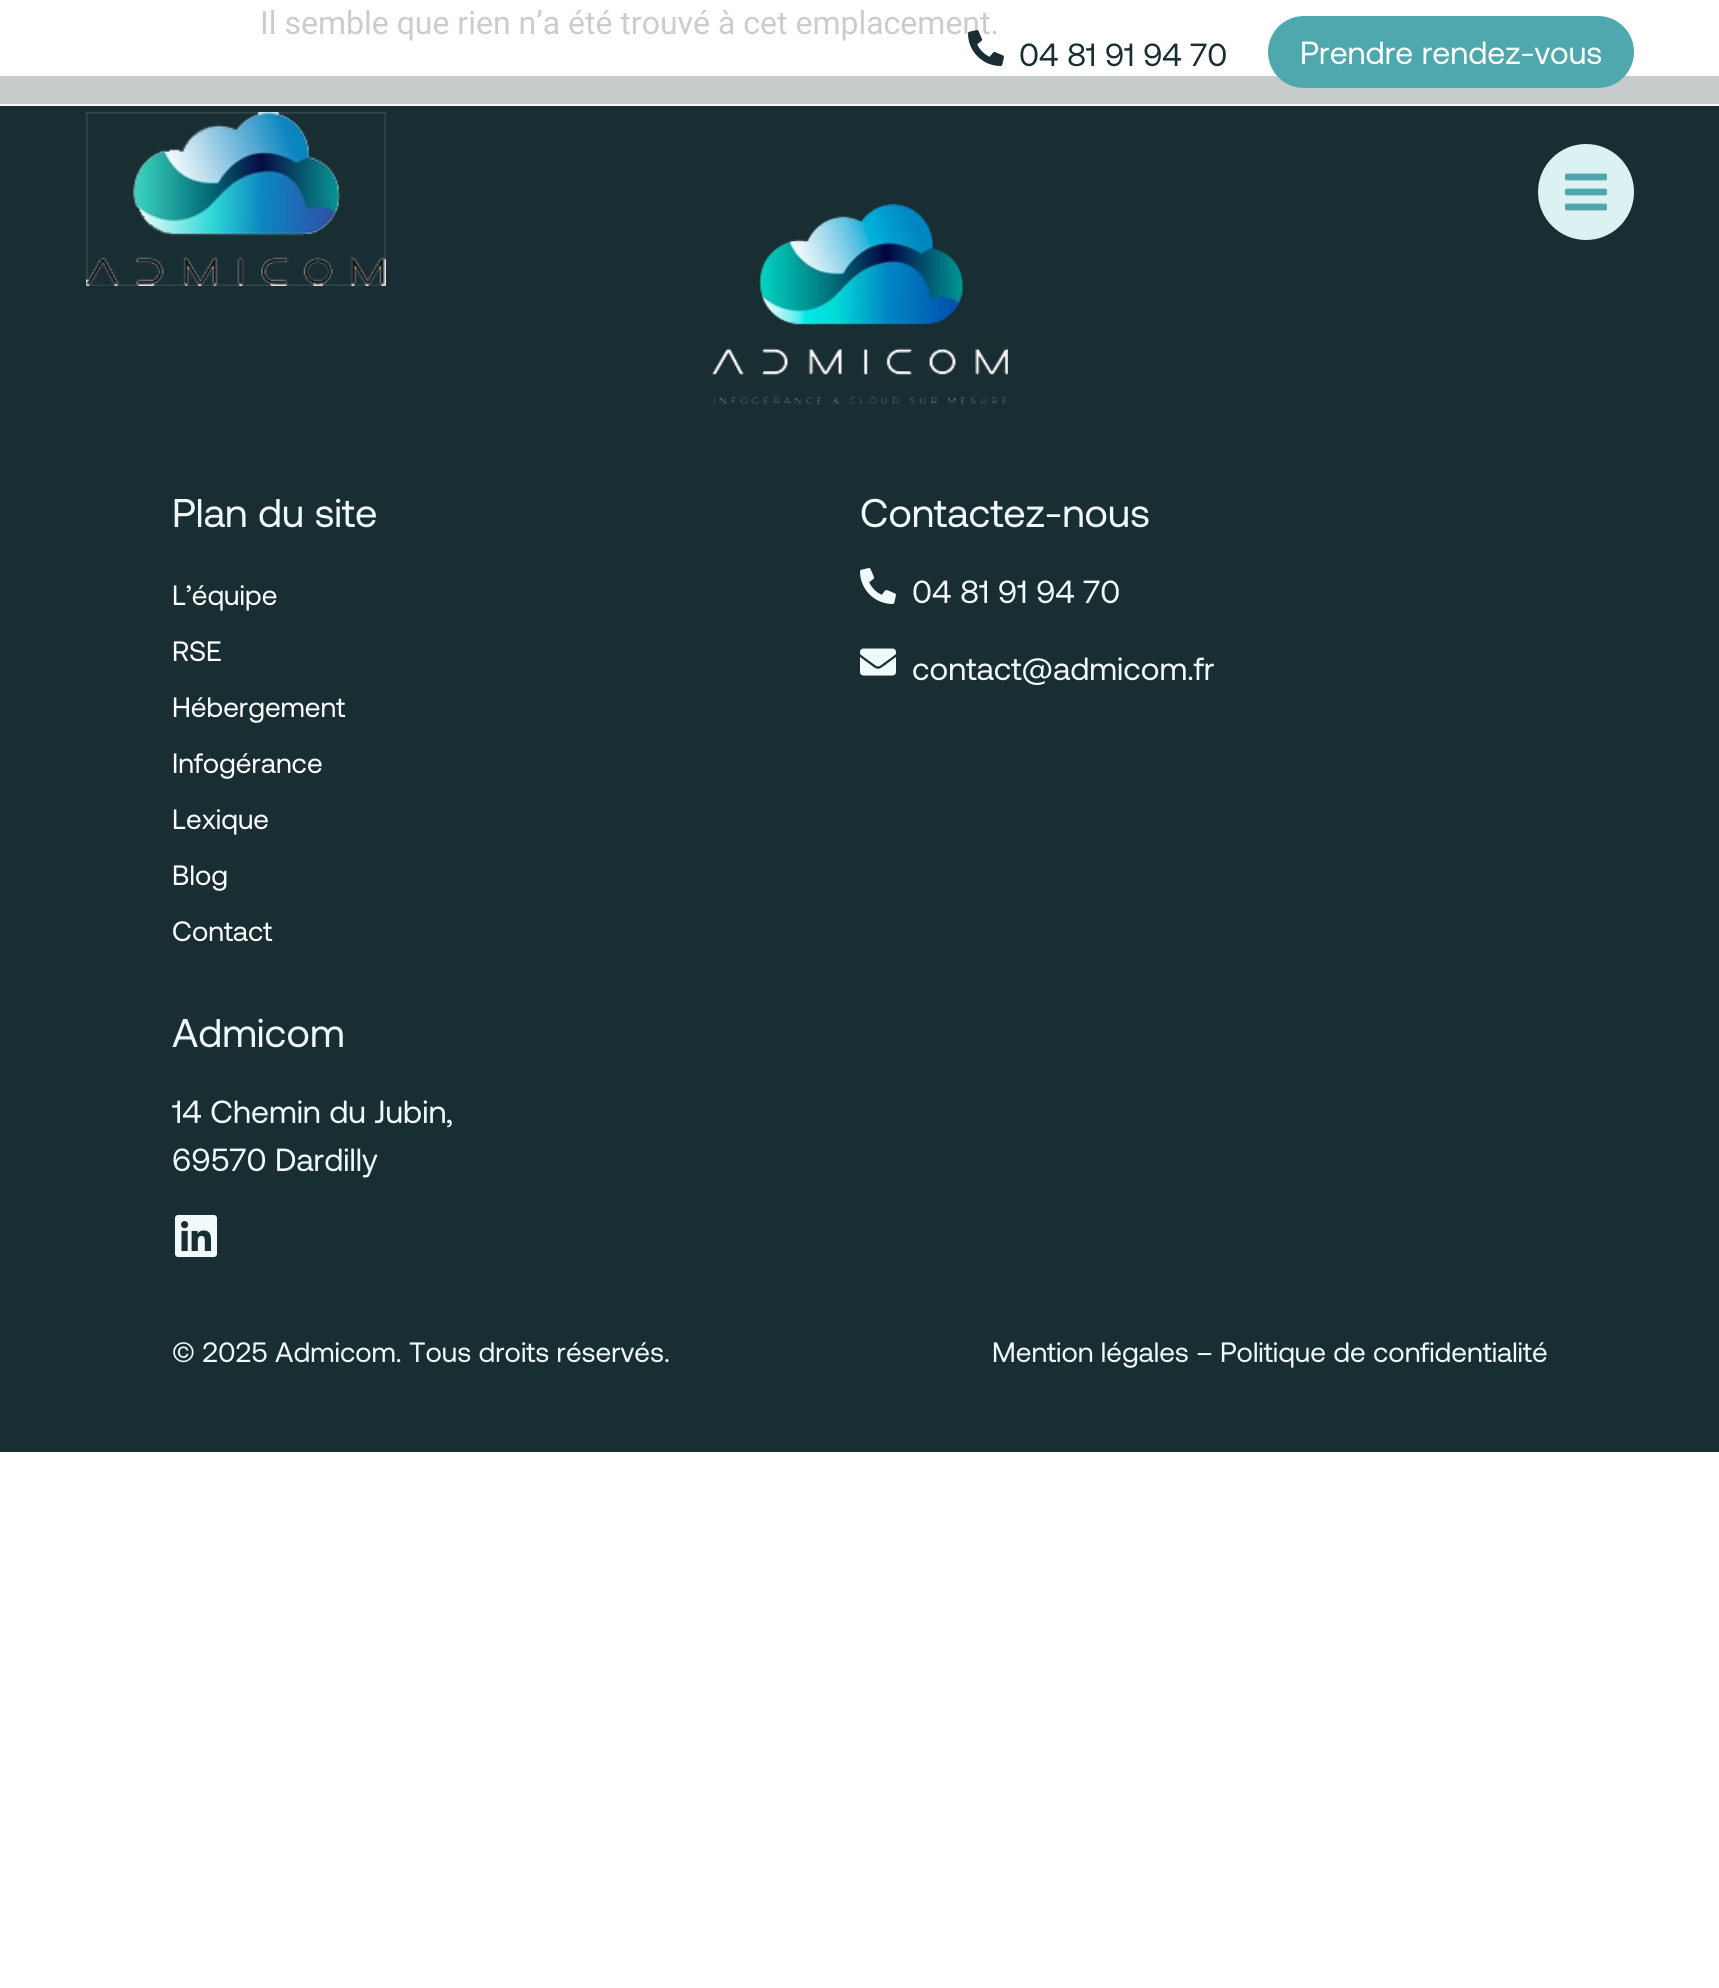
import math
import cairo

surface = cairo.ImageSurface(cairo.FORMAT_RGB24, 1719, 1988)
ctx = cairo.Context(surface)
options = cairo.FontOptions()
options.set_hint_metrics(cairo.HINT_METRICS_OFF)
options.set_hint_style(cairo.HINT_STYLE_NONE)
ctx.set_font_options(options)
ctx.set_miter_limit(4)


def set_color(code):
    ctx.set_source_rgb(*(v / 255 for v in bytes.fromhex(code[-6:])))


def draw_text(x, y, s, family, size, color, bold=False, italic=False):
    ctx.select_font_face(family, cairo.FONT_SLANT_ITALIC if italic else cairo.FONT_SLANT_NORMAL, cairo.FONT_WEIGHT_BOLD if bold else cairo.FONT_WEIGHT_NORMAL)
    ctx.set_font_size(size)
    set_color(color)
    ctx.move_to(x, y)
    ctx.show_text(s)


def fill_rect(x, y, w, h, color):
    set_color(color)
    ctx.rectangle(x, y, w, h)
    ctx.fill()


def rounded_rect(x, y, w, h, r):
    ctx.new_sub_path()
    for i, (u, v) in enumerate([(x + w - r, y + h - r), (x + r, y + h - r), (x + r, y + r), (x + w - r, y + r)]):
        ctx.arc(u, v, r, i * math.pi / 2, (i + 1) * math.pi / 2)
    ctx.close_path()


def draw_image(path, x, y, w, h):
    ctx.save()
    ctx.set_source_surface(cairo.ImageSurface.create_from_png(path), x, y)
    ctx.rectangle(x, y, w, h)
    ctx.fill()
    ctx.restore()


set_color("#ffffff")
ctx.paint()
draw_text(260, 34, "Il semble que rien n’a été trouvé à cet emplacement.", "Roboto", 32, "#cccccc")
fill_rect(0, 104, 1719, 2, "#f6f7f7")
draw_image("assets/img1.png", 968, 30, 36, 36)
draw_text(1019, 66, "04 81 91 94 70", "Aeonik", 32, "#192e33")
fill_rect(0, 76, 1719, 28, "#c6cbcc")
set_color("#4ea8ad")
rounded_rect(1268, 16, 366, 72, 36)
ctx.fill()
draw_text(1300, 64, "Prendre rendez-vous", "Aeonik", 32, "#ffffff")
fill_rect(0, 106, 1719, 1346, "#192e33")
draw_image("assets/img2.png", 86, 112, 300, 174)
set_color("#dcf1f1")
ctx.arc(1586, 192, 48, 0, 2 * math.pi)
ctx.fill()
draw_image("assets/img3.png", 1565, 173, 42, 38)
draw_image("assets/img4.png", 712, 204, 296, 200)
draw_text(172, 527, "Plan du site", "Aeonik", 40, "#f1fafa")
draw_text(172, 605, "L’équipe", "Aeonik", 28, "#ffffff")
draw_text(172, 661, "RSE", "Aeonik", 28, "#ffffff")
draw_text(172, 717, "Hébergement", "Aeonik", 28, "#ffffff")
draw_text(172, 773, "Infogérance", "Aeonik", 28, "#ffffff")
draw_text(172, 829, "Lexique", "Aeonik", 28, "#ffffff")
draw_text(172, 885, "Blog", "Aeonik", 28, "#ffffff")
draw_text(172, 941, "Contact", "Aeonik", 28, "#ffffff")
draw_text(860, 527, "Contactez-nous", "Aeonik", 40, "#f1fafa")
draw_image("assets/img5.png", 860, 568, 36, 36)
draw_text(912, 603, "04 81 91 94 70", "Aeonik", 32, "#f1fafa")
draw_image("assets/img6.png", 860, 648, 36, 28)
draw_text(912, 680, "contact@admicom.fr", "Aeonik", 32, "#f1fafa")
draw_text(172, 1047, "Admicom", "Aeonik", 40, "#f1fafa")
draw_text(172, 1123, "14 Chemin du Jubin,", "Aeonik", 32, "#f1fafa")
draw_text(172, 1171, "69570 Dardilly", "Aeonik", 32, "#f1fafa")
draw_image("assets/img7.png", 175, 1215, 42, 42)
draw_text(172, 1362, "© 2025 Admicom. Tous droits réservés.", "Aeonik", 28, "#f1fafa")
draw_text(992, 1362, "Mention légales – Politique de confidentialité", "Aeonik", 28, "#f1fafa")
surface.write_to_png("output.png")
